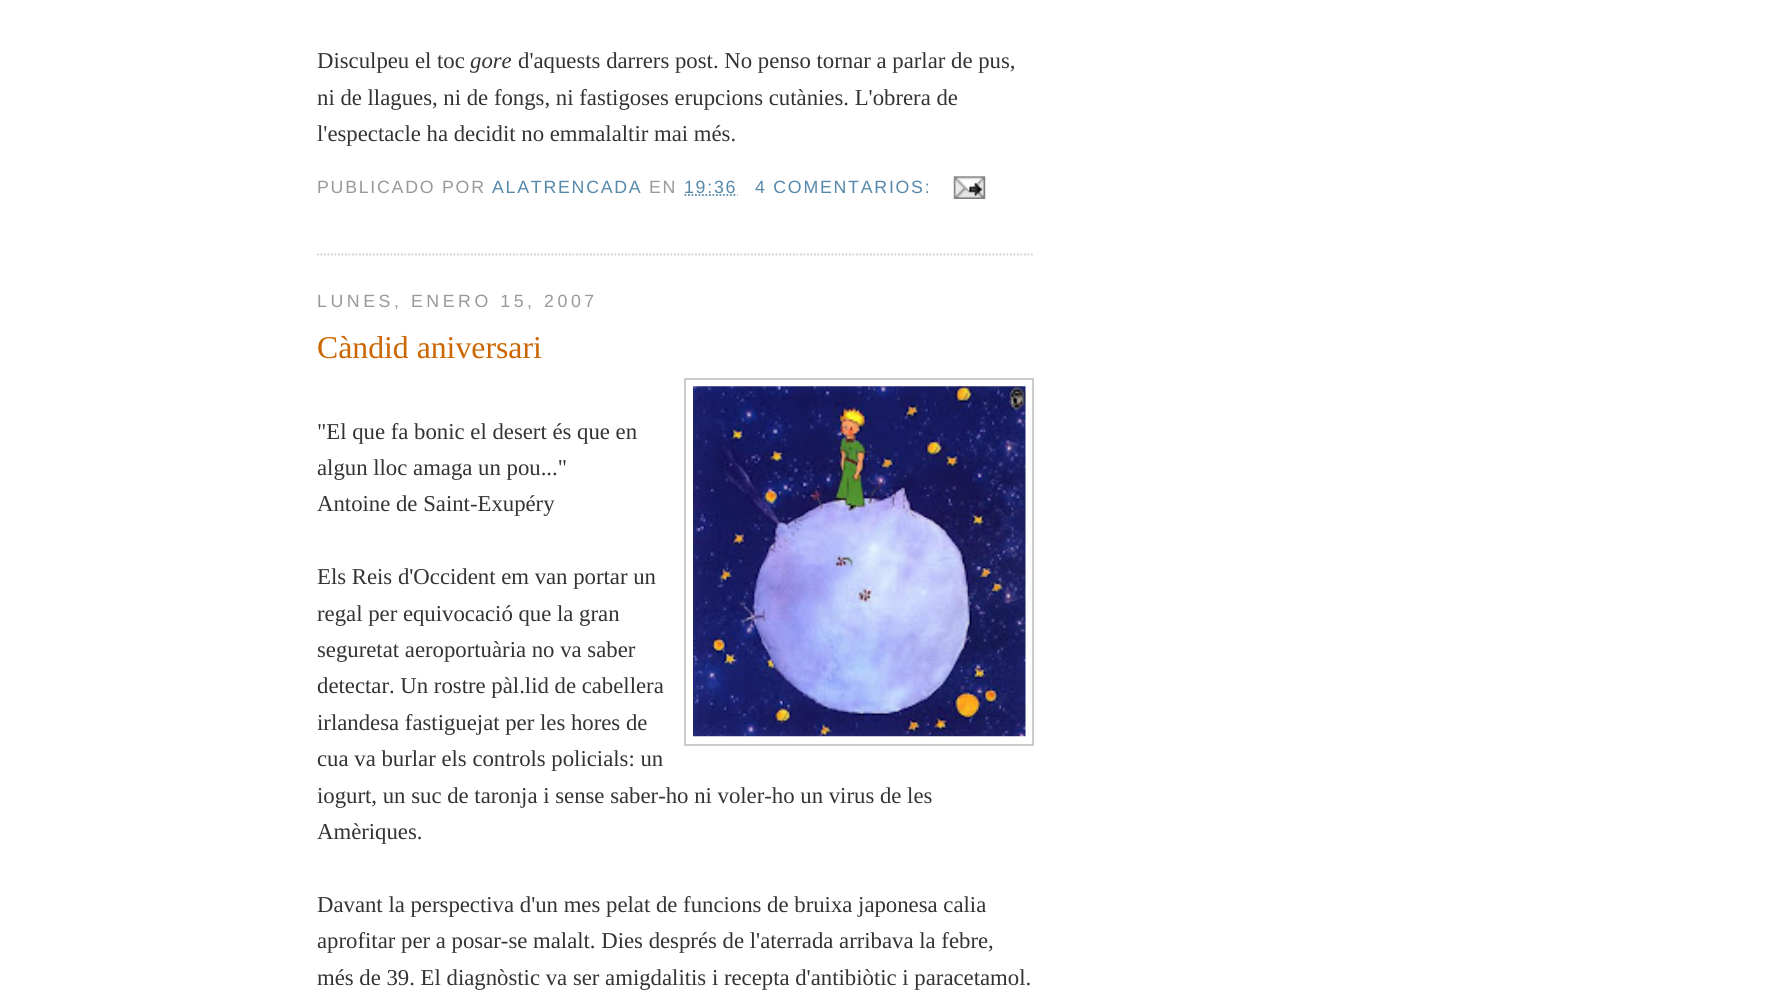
import math
import cairo

surface = cairo.ImageSurface(cairo.FORMAT_RGB24, 1787, 1000)
ctx = cairo.Context(surface)
options = cairo.FontOptions()
options.set_hint_metrics(cairo.HINT_METRICS_OFF)
options.set_hint_style(cairo.HINT_STYLE_NONE)
ctx.set_font_options(options)
ctx.set_miter_limit(4)


def set_color(code):
    ctx.set_source_rgb(*(v / 255 for v in bytes.fromhex(code[-6:])))


def draw_text(x, y, s, family, size, color, bold=False, italic=False):
    ctx.select_font_face(family, cairo.FONT_SLANT_ITALIC if italic else cairo.FONT_SLANT_NORMAL, cairo.FONT_WEIGHT_BOLD if bold else cairo.FONT_WEIGHT_NORMAL)
    ctx.set_font_size(size)
    set_color(color)
    ctx.move_to(x, y)
    ctx.show_text(s)


def draw_spaced(x, y, s, letter, word):
    ctx.move_to(x, y)
    for ch in s:
        ctx.show_text(ch)
        ctx.rel_move_to(letter + word * (ch == ' '), 0)


def draw_image(path, x, y, w, h):
    ctx.save()
    ctx.set_source_surface(cairo.ImageSurface.create_from_png(path), x, y)
    ctx.rectangle(x, y, w, h)
    ctx.fill()
    ctx.restore()


set_color("#ffffff")
ctx.paint()
ctx.new_path()
ctx.move_to(317, 254.5)
ctx.line_to(1034, 254.5)
set_color("#cccccc")
ctx.set_line_width(1.8)
ctx.set_dash([1.75, 1.75])
ctx.stroke()
draw_text(317, 68, "Disculpeu el toc", "Liberation Serif", 22.75, "#333333")
draw_text(470, 68, "gore", "Liberation Serif", 22.75, "#333333", italic=True)
draw_text(518, 68, "d'aquests darrers post. No penso tornar a parlar de pus,", "Liberation Serif", 22.75, "#333333")
draw_text(317, 105, "ni de llagues, ni de fongs, ni fastigoses erupcions cutànies. L'obrera de", "Liberation Serif", 22.75, "#333333")
draw_text(317, 141, "l'espectacle ha decidit no emmalaltir mai més.", "Liberation Serif", 22.75, "#333333")
ctx.select_font_face("Liberation Sans")
ctx.set_font_size(17.75)
set_color("#999999")
draw_spaced(317, 193, "PUBLICADO POR", 1.75, 0)
set_color("#5588aa")
draw_spaced(492, 193, "ALATRENCADA", 1.75, 0)
set_color("#999999")
draw_spaced(649, 193, "EN", 1.75, 0)
set_color("#5588aa")
draw_spaced(684, 193, "19:36", 1.75, 0)
ctx.new_path()
ctx.move_to(684.5, 195)
ctx.line_to(737.5, 195)
ctx.stroke()
draw_spaced(755, 193, "4 COMENTARIOS:", 1.75, 0)
draw_image("assets/img1.png", 953, 176, 33, 23)
set_color("#999999")
draw_spaced(317, 307, "LUNES, ENERO 15, 2007", 3.55, 0)
draw_text(317, 358, "Càndid aniversari", "Liberation Serif", 31.75, "#cc6600")
ctx.rectangle(685, 379, 348, 366)
set_color("#cccccc")
ctx.set_line_width(2)
ctx.set_dash([])
ctx.stroke()
draw_image("assets/img2.png", 693, 386, 333, 351)
draw_text(317, 439, "\"El que fa bonic el desert és que en", "Liberation Serif", 22.75, "#333333")
draw_text(317, 475, "algun lloc amaga un pou...\"", "Liberation Serif", 22.75, "#333333")
draw_text(317, 511, "Antoine de Saint-Exupéry", "Liberation Serif", 22.75, "#333333")
draw_text(317, 584, "Els Reis d'Occident em van portar un", "Liberation Serif", 22.75, "#333333")
draw_text(317, 621, "regal per equivocació que la gran", "Liberation Serif", 22.75, "#333333")
draw_text(317, 657, "seguretat aeroportuària no va saber", "Liberation Serif", 22.75, "#333333")
draw_text(317, 693, "detectar. Un rostre pàl.lid de cabellera", "Liberation Serif", 22.75, "#333333")
draw_text(317, 730, "irlandesa fastiguejat per les hores de", "Liberation Serif", 22.75, "#333333")
draw_text(317, 766, "cua va burlar els controls policials: un", "Liberation Serif", 22.75, "#333333")
draw_text(317, 803, "iogurt, un suc de taronja i sense saber-ho ni voler-ho un virus de les", "Liberation Serif", 22.75, "#333333")
draw_text(317, 839, "Amèriques.", "Liberation Serif", 22.75, "#333333")
draw_text(317, 912, "Davant la perspectiva d'un mes pelat de funcions de bruixa japonesa calia", "Liberation Serif", 22.75, "#333333")
draw_text(317, 948, "aprofitar per a posar-se malalt. Dies després de l'aterrada arribava la febre,", "Liberation Serif", 22.75, "#333333")
draw_text(317, 985, "més de 39. El diagnòstic va ser amigdalitis i recepta d'antibiòtic i paracetamol.", "Liberation Serif", 22.75, "#333333")
surface.write_to_png("output.png")
